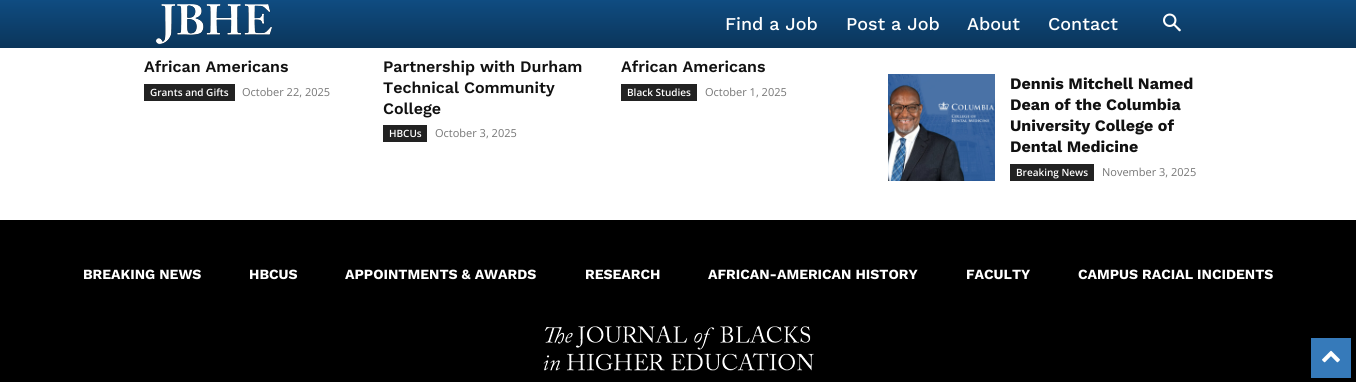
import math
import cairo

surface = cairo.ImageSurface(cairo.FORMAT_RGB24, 1356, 382)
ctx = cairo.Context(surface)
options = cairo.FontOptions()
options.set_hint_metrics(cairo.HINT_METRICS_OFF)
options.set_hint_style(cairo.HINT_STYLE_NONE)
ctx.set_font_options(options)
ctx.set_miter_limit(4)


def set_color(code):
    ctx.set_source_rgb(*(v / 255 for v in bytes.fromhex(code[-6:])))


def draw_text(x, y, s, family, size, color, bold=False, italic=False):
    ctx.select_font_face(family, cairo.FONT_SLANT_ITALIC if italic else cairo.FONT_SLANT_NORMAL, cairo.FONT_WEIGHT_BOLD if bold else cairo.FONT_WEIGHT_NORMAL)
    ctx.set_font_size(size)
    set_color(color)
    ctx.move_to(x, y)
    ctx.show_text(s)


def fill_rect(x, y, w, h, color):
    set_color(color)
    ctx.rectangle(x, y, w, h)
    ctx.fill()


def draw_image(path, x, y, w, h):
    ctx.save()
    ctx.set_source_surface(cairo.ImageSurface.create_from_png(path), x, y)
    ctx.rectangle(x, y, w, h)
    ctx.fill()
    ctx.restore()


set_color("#ffffff")
ctx.paint()
gradient = cairo.LinearGradient(678, 0, 678, 48)
gradient.add_color_stop_rgba(0, 0.059, 0.298, 0.506, 1)
gradient.add_color_stop_rgba(1, 0.043, 0.208, 0.353, 1)
ctx.set_source(gradient)
ctx.rectangle(0, 0, 1356, 48)
ctx.fill()
draw_image("assets/img1.png", 155, 4, 118, 41)
draw_text(725, 30, "Find a Job", "Work Sans Medium", 18, "#ffffff")
draw_text(846, 30, "Post a Job", "Work Sans Medium", 18, "#ffffff")
draw_text(967, 30, "About", "Work Sans Medium", 18, "#ffffff")
draw_text(1048, 30, "Contact", "Work Sans Medium", 18, "#ffffff")
draw_image("assets/img2.png", 1163, 13, 18, 19)
draw_text(144, 72, "African Americans", "Work Sans SemiBold", 16, "#111111")
fill_rect(144, 84, 91, 17, "#222222")
draw_text(150, 96, "Grants and Gifts", "Open Sans SemiBold", 10, "#ffffff")
draw_text(242, 96, "October 22, 2025", "Open Sans", 11, "#767676")
draw_text(383, 72, "Partnership with Durham", "Work Sans SemiBold", 16, "#111111")
draw_text(383, 93, "Technical Community", "Work Sans SemiBold", 16, "#111111")
draw_text(383, 114, "College", "Work Sans SemiBold", 16, "#111111")
fill_rect(383, 125, 44, 17, "#222222")
draw_text(389, 137, "HBCUs", "Open Sans SemiBold", 10, "#ffffff")
draw_text(435, 137, "October 3, 2025", "Open Sans", 11, "#767676")
draw_text(621, 72, "African Americans", "Work Sans SemiBold", 16, "#111111")
fill_rect(621, 84, 76, 17, "#222222")
draw_text(627, 96, "Black Studies", "Open Sans SemiBold", 10, "#ffffff")
draw_text(705, 96, "October 1, 2025", "Open Sans", 11, "#767676")
draw_image("assets/img3.png", 888, 74, 107, 107)
draw_text(1010, 89, "Dennis Mitchell Named", "Work Sans", 16, "#111111", bold=True)
draw_text(1010, 110, "Dean of the Columbia", "Work Sans", 16, "#111111", bold=True)
draw_text(1010, 131, "University College of", "Work Sans", 16, "#111111", bold=True)
draw_text(1010, 152, "Dental Medicine", "Work Sans", 16, "#111111", bold=True)
fill_rect(1010, 164, 84, 17, "#222222")
draw_text(1016, 176, "Breaking News", "Open Sans SemiBold", 10, "#ffffff")
draw_text(1102, 176, "November 3, 2025", "Open Sans", 11, "#767676")
fill_rect(0, 220, 1356, 162, "#000000")
draw_text(83, 279, "BREAKING NEWS", "Work Sans", 14, "#ffffff", bold=True)
draw_text(249, 279, "HBCUS", "Work Sans", 14, "#ffffff", bold=True)
draw_text(345, 279, "APPOINTMENTS & AWARDS", "Work Sans", 14, "#ffffff", bold=True)
draw_text(585, 279, "RESEARCH", "Work Sans", 14, "#ffffff", bold=True)
draw_text(708, 279, "AFRICAN-AMERICAN HISTORY", "Work Sans", 14, "#ffffff", bold=True)
draw_text(966, 279, "FACULTY", "Work Sans", 14, "#ffffff", bold=True)
draw_text(1078, 279, "CAMPUS RACIAL INCIDENTS", "Work Sans", 14, "#ffffff", bold=True)
draw_image("assets/img4.png", 543, 325, 271, 46)
fill_rect(1311, 338, 40, 40, "#367aba")
draw_image("assets/img5.png", 1322, 350, 18, 13)
surface.write_to_png("output.png")
